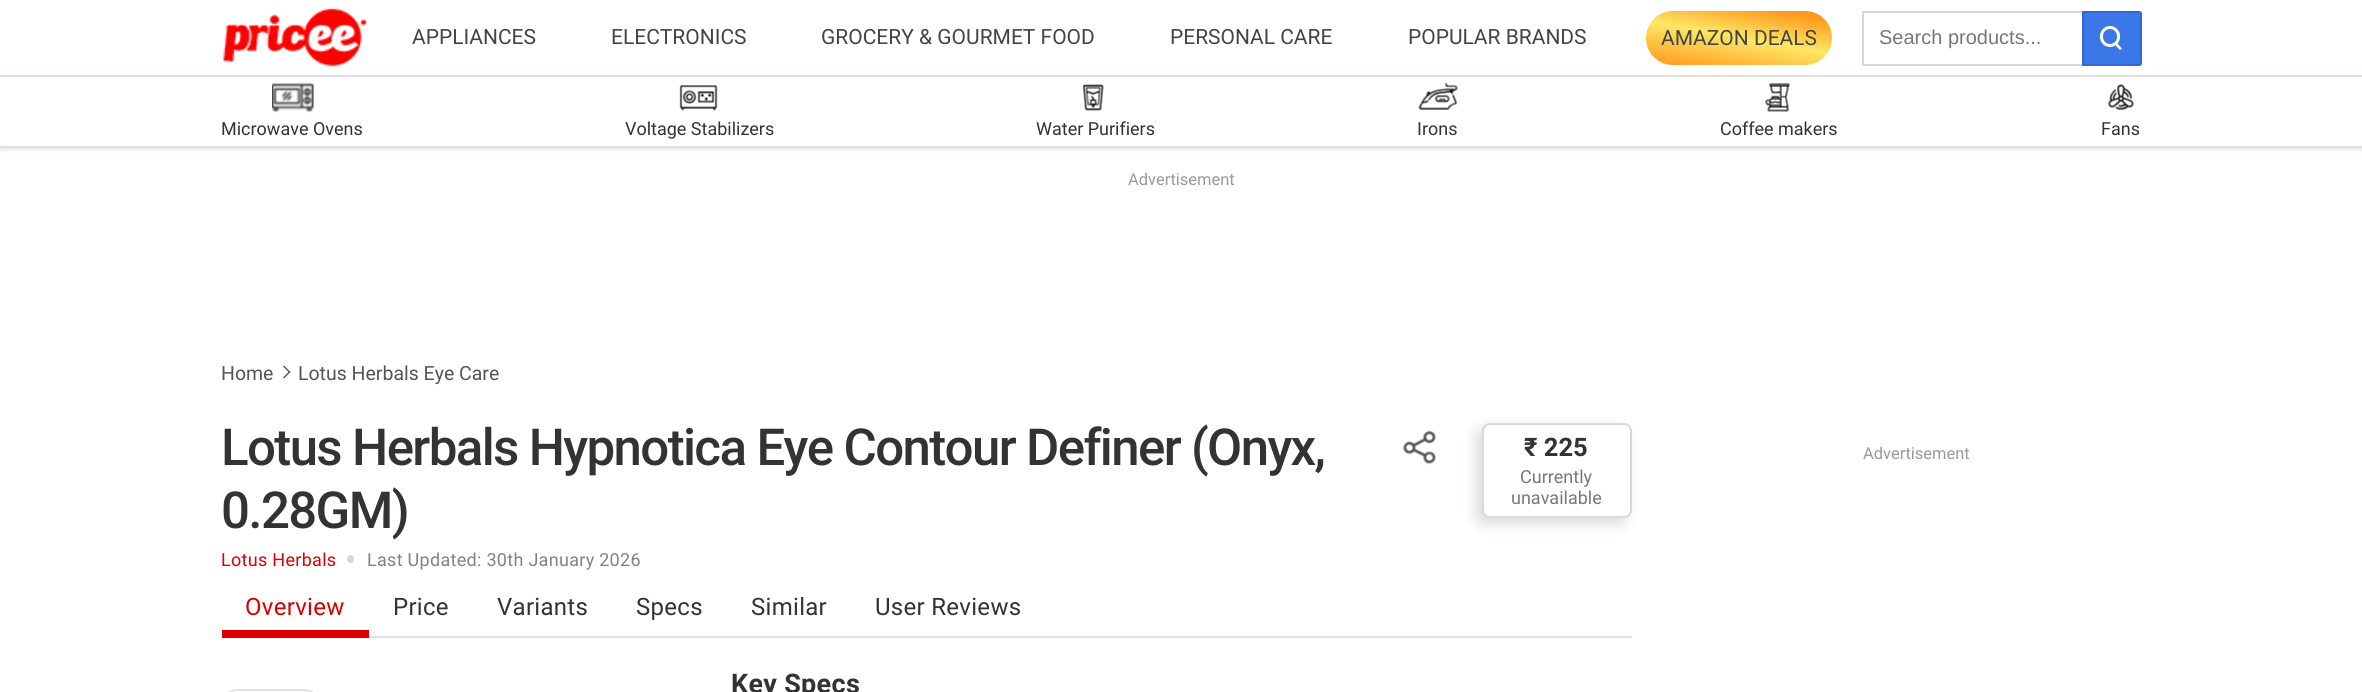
import math
import cairo

surface = cairo.ImageSurface(cairo.FORMAT_RGB24, 2362, 692)
ctx = cairo.Context(surface)
options = cairo.FontOptions()
options.set_hint_metrics(cairo.HINT_METRICS_OFF)
options.set_hint_style(cairo.HINT_STYLE_NONE)
ctx.set_font_options(options)
ctx.set_miter_limit(4)


def set_color(code):
    ctx.set_source_rgb(*(v / 255 for v in bytes.fromhex(code[-6:])))


def draw_text(x, y, s, family, size, color, bold=False, italic=False):
    ctx.select_font_face(family, cairo.FONT_SLANT_ITALIC if italic else cairo.FONT_SLANT_NORMAL, cairo.FONT_WEIGHT_BOLD if bold else cairo.FONT_WEIGHT_NORMAL)
    ctx.set_font_size(size)
    set_color(color)
    ctx.move_to(x, y)
    ctx.show_text(s)


def draw_spaced(x, y, s, letter, word):
    ctx.move_to(x, y)
    for ch in s:
        ctx.show_text(ch)
        ctx.rel_move_to(letter + word * (ch == ' '), 0)


def fill_rect(x, y, w, h, color):
    set_color(color)
    ctx.rectangle(x, y, w, h)
    ctx.fill()


def rounded_rect(x, y, w, h, r):
    ctx.new_sub_path()
    for i, (u, v) in enumerate([(x + w - r, y + h - r), (x + r, y + h - r), (x + r, y + r), (x + w - r, y + r)]):
        ctx.arc(u, v, r, i * math.pi / 2, (i + 1) * math.pi / 2)
    ctx.close_path()


def draw_shadow(x, y, w, h, r, blur, alpha):
    ctx.push_group_with_content(cairo.CONTENT_ALPHA)
    ctx.set_operator(cairo.OPERATOR_SOURCE)
    for i in range(15, -16, -2):
        e = blur * i / 6
        if min(w, h) + 2 * e > 0:
            ctx.set_source_rgba(0, 0, 0, alpha * math.erfc((i - 1) / 8.5) / 2)
            rounded_rect(x - e, y - e, w + 2 * e, h + 2 * e, max(0, min(r + e + blur * .6, min(w, h) / 2 + e)))
            ctx.fill()
    ctx.mask(ctx.pop_group())


def draw_image(path, x, y, w, h):
    ctx.save()
    ctx.set_source_surface(cairo.ImageSurface.create_from_png(path), x, y)
    ctx.rectangle(x, y, w, h)
    ctx.fill()
    ctx.restore()


set_color("#ffffff")
ctx.paint()
ctx.save()
ctx.rectangle(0, 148, 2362, 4)
ctx.clip()
set_color("#000000")
draw_shadow(0, 80, 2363, 70, 0, 2, 0.1)
ctx.restore()
fill_rect(0, 75, 2362, 2, "#e6dede")
draw_image("assets/img1.png", 223, 8, 144, 59)
draw_text(412, 44, "APPLIANCES", "Roboto", 21, "#444444")
draw_text(611, 44, "ELECTRONICS", "Roboto", 21, "#444444")
draw_text(821, 44, "GROCERY & GOURMET FOOD", "Roboto", 21, "#444444")
draw_text(1170, 44, "PERSONAL CARE", "Roboto", 21, "#444444")
draw_text(1408, 44, "POPULAR BRANDS", "Roboto", 21, "#444444")
gradient = cairo.LinearGradient(1731, 80, 1746, -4.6)
gradient.add_color_stop_rgba(0, 1, 0.592, 0.102, 1)
gradient.add_color_stop_rgba(0.5, 0.996, 0.906, 0.396, 1)
gradient.add_color_stop_rgba(0.9, 1, 0.592, 0.102, 1)
ctx.set_source(gradient)
rounded_rect(1646, 11, 186, 54, 27)
ctx.fill()
draw_text(1661, 45, "AMAZON DEALS", "Roboto", 21, "#444444")
ctx.rectangle(1863, 12, 278, 53)
set_color("#d9d9d9")
ctx.stroke()
draw_text(1879, 44, "Search products...", "Liberation Sans", 20, "#777777")
set_color("#3b78e7")
ctx.new_path()
ctx.move_to(2083, 12)
ctx.line_to(2139, 12)
ctx.curve_to(2140, 12, 2141, 13, 2141, 14)
ctx.line_to(2141, 63)
ctx.curve_to(2141, 64, 2140, 65, 2139, 65)
ctx.line_to(2083, 65)
ctx.close_path()
ctx.fill_preserve()
set_color("#3367d6")
ctx.stroke()
rounded_rect(2101.5, 27.5, 17, 18, 8.5)
set_color("#ffffff")
ctx.set_line_width(3)
ctx.stroke()
ctx.new_path()
ctx.move_to(2114.5, 44.5)
ctx.line_to(2116.5, 42.5)
ctx.line_to(2122, 48.5)
ctx.line_to(2120, 50)
ctx.close_path()
ctx.fill()
fill_rect(0, 146, 2362, 2, "#e6dede")
draw_image("assets/img2.png", 272, 82, 42, 31)
draw_text(221, 135, "Microwave Ovens", "Roboto", 18, "#333333")
draw_image("assets/img3.png", 679, 85, 39, 26)
draw_text(625, 135, "Voltage Stabilizers", "Roboto", 18, "#333333")
draw_image("assets/img4.png", 1082, 84, 22, 27)
draw_text(1036, 135, "Water Purifiers", "Roboto", 18, "#333333")
draw_image("assets/img5.png", 1418, 82, 40, 28)
draw_text(1417, 135, "Irons", "Roboto", 18, "#333333")
draw_image("assets/img6.png", 1765, 83, 25, 29)
draw_text(1720, 135, "Coffee makers", "Roboto", 18, "#333333")
draw_image("assets/img7.png", 2108, 84, 26, 26)
draw_text(2101, 135, "Fans", "Roboto", 18, "#333333")
draw_text(1128, 185, "Advertisement", "Roboto", 16.5, "#999999")
draw_text(221, 380, "Home", "Roboto", 19.5, "#555555")
ctx.new_path()
ctx.move_to(284, 365.5)
ctx.line_to(290.5, 372)
ctx.line_to(289.5, 373)
ctx.line_to(283, 366.5)
ctx.close_path()
ctx.fill()
ctx.new_path()
ctx.move_to(289.5, 371)
ctx.line_to(290.5, 372)
ctx.line_to(284, 378.5)
ctx.line_to(283, 377.5)
ctx.close_path()
ctx.fill()
draw_text(298, 380, "Lotus Herbals Eye Care", "Roboto", 19.5, "#555555")
ctx.select_font_face("Roboto Medium")
ctx.set_font_size(51)
set_color("#333333")
draw_spaced(221, 465, "Lotus Herbals Hypnotica Eye Contour Definer (Onyx,", -1.65, 0)
draw_spaced(221, 528, "0.28GM)", -1.65, 0)
draw_image("assets/img8.png", 1402, 430, 50, 35)
set_color("#000000")
draw_shadow(1476, 429, 150, 95, 8, 7.5, 0.15)
set_color("#ffffff")
rounded_rect(1483, 424, 148, 93, 7)
ctx.fill_preserve()
set_color("#d9d9d9")
ctx.set_line_width(2)
ctx.stroke()
draw_text(1524, 456, "₹ 225", "Roboto", 25.5, "#333333", bold=True)
draw_text(1520, 483, "Currently", "Roboto", 18, "#777777")
draw_text(1511, 504, "unavailable", "Roboto", 18, "#777777")
set_color("#da0000")
draw_spaced(221, 566, "Lotus Herbals", 0.3, 0)
set_color("#d8d8d8")
rounded_rect(347, 555, 7, 8, 3.5)
ctx.fill()
set_color("#828282")
draw_spaced(367, 566, "Last Updated: 30th January 2026", 0.3, 0)
fill_rect(369, 636, 1263, 2, "#e1e1e1")
ctx.set_font_size(24)
set_color("#da0000")
draw_spaced(245, 615, "Overview", 0.3, 0)
fill_rect(222, 630, 147, 8, "#da0000")
set_color("#333333")
draw_spaced(393, 615, "Price", 0.3, 0)
draw_spaced(497, 615, "Variants", 0.3, 0)
draw_spaced(636, 615, "Specs", 0.3, 0)
draw_spaced(751, 615, "Similar", 0.3, 0)
draw_spaced(875, 615, "User Reviews", 0.3, 0)
ctx.select_font_face("Roboto", cairo.FONT_SLANT_NORMAL, cairo.FONT_WEIGHT_BOLD)
ctx.set_font_size(27)
draw_spaced(731, 693, "Key Specs", 0.3, 0)
rounded_rect(223, 690, 96, 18, 14)
set_color("#e2e2e2")
ctx.stroke()
draw_text(1863, 459, "Advertisement", "Roboto", 16.5, "#999999")
surface.write_to_png("output.png")
